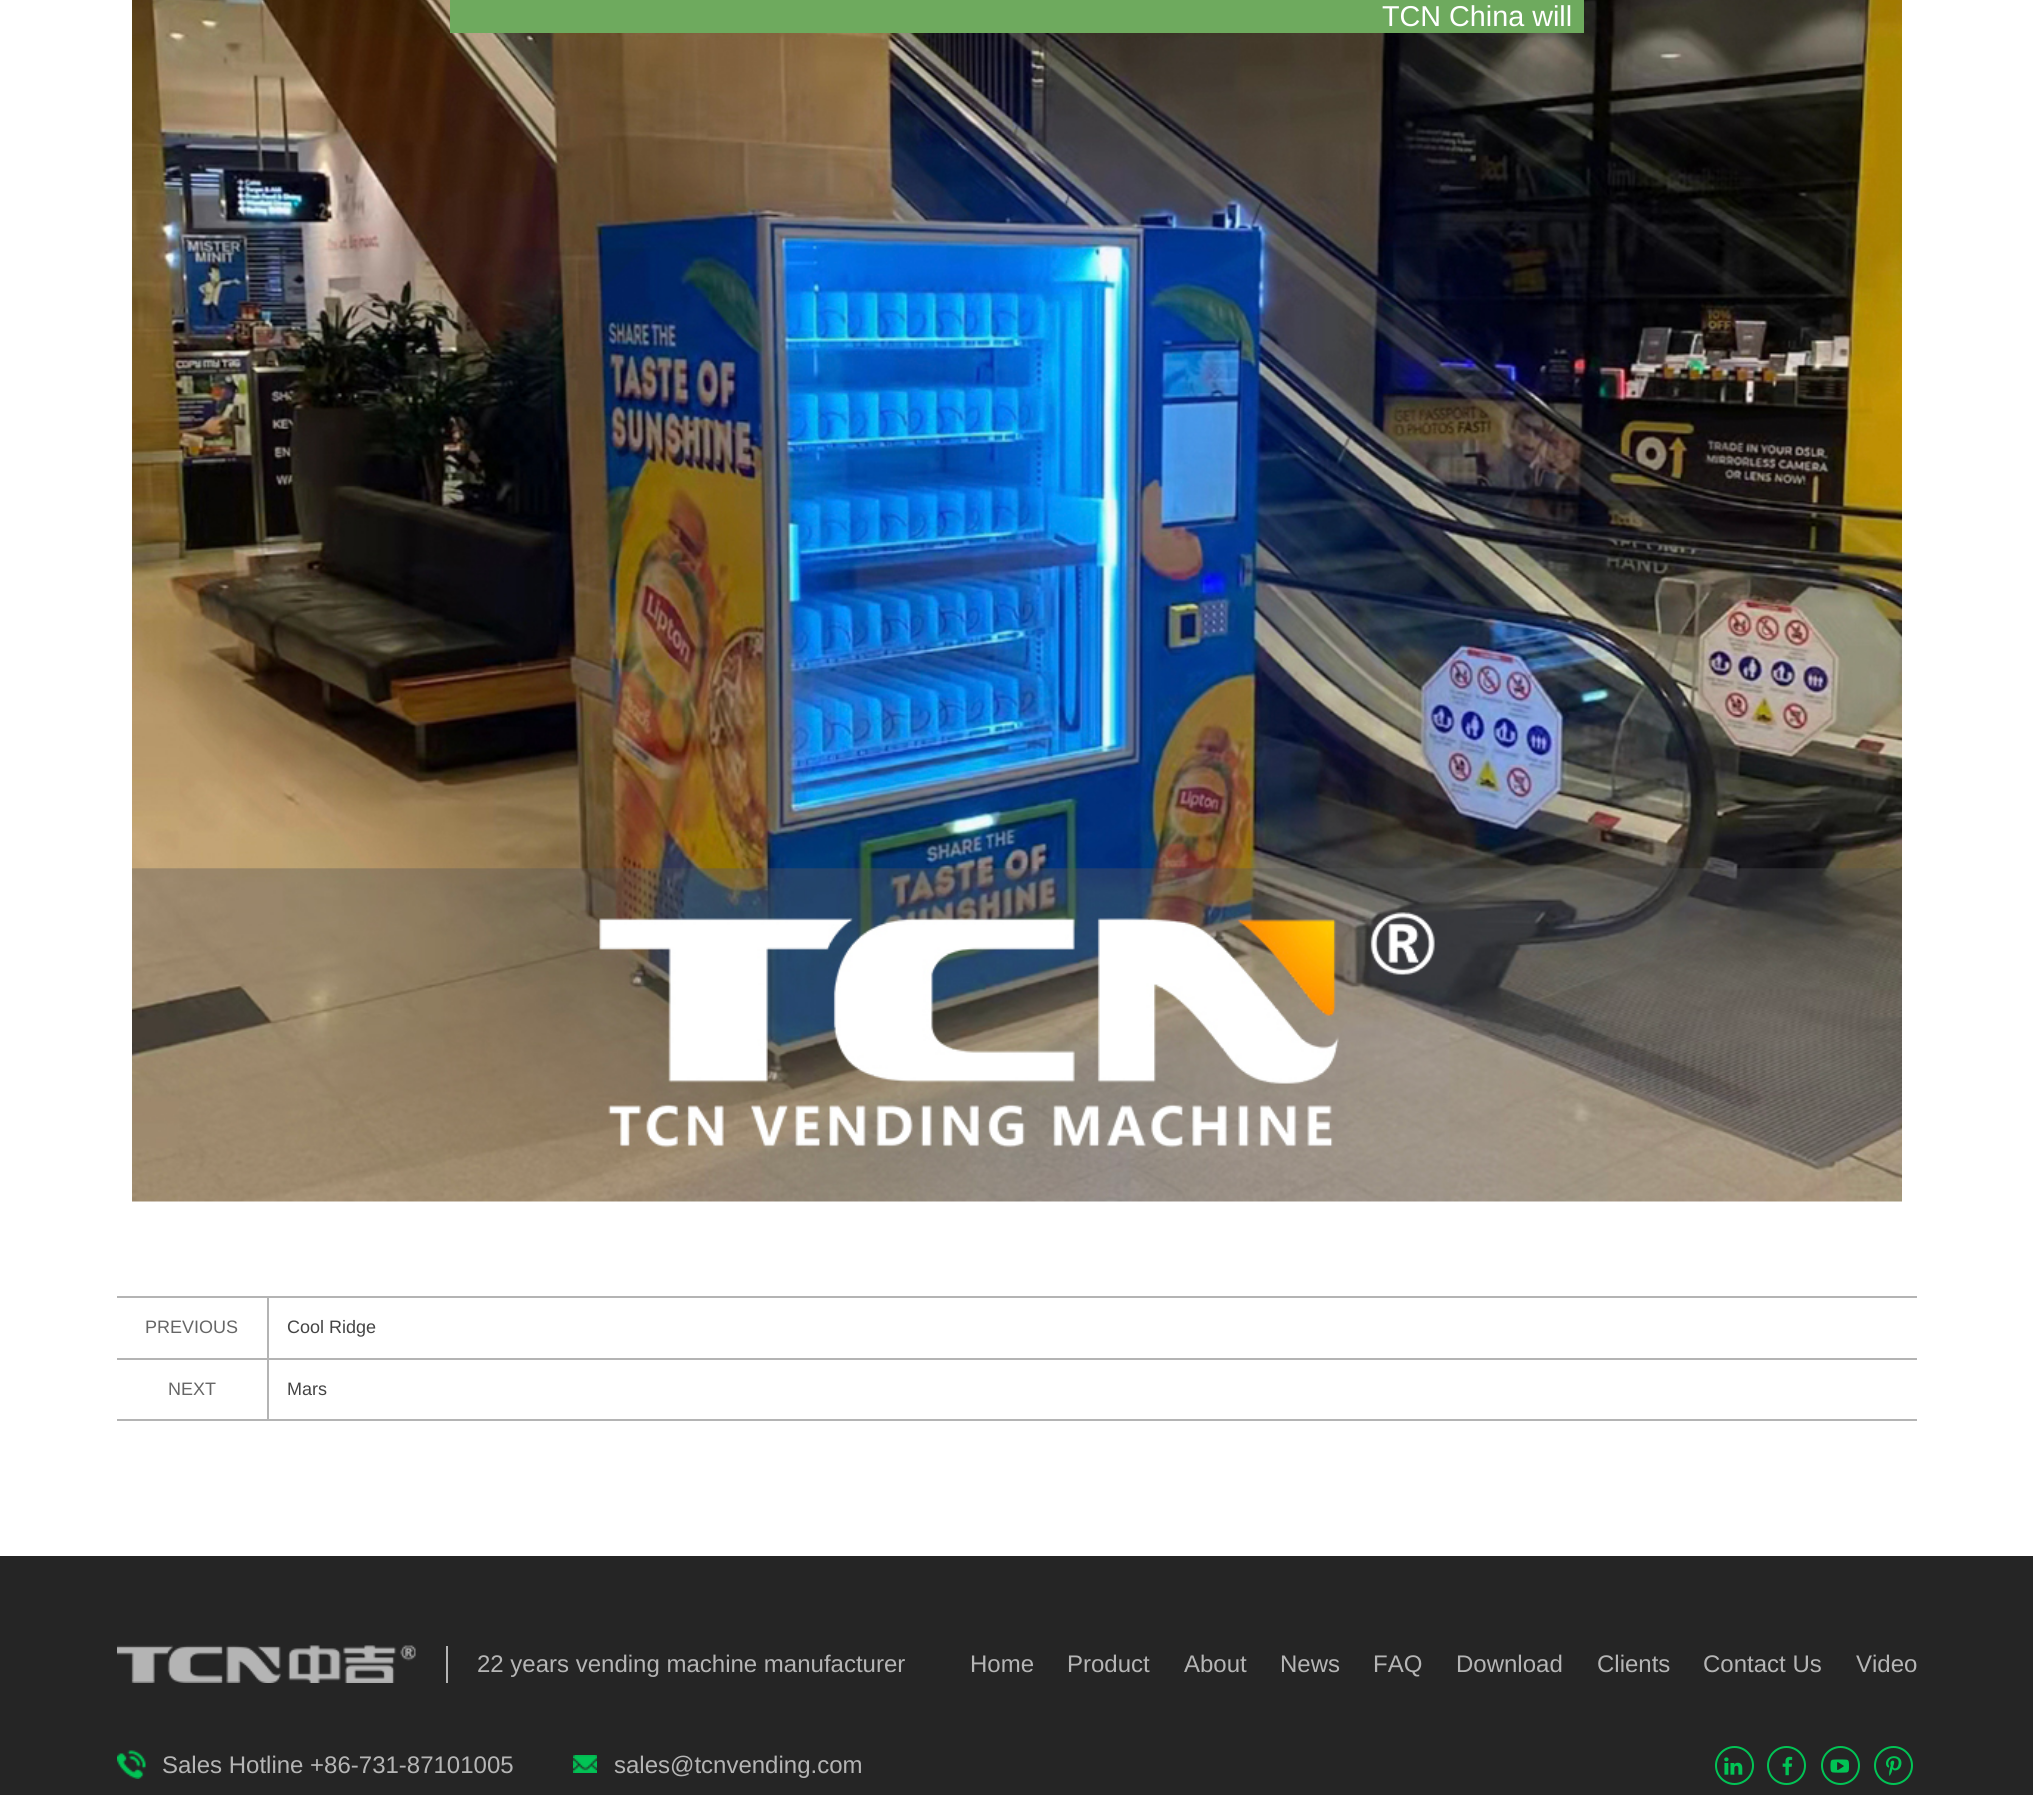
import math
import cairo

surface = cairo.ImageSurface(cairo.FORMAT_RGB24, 2033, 1795)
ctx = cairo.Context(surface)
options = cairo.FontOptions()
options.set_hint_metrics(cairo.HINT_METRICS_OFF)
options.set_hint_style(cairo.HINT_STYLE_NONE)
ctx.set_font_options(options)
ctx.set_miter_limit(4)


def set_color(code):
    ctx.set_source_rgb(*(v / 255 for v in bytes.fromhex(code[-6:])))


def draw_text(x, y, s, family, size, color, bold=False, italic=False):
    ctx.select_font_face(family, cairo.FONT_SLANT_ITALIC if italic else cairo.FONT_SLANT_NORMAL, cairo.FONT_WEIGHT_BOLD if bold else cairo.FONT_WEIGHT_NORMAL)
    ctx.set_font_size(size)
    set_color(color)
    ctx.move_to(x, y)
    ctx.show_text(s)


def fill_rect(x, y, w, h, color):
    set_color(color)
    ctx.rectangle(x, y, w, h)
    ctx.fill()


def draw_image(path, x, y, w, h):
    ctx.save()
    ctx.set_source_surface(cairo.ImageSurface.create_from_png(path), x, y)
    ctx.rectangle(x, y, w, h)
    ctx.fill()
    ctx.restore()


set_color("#ffffff")
ctx.paint()
draw_image("assets/img1.png", 132, 0, 1770, 1202)
fill_rect(450, 0, 1134, 33, "#6eaa5e")
draw_text(1382, 26, "TCN China will", "Liberation Sans", 28.75, "#ffffff")
fill_rect(117, 1419, 1800, 2, "#b4b4b4")
fill_rect(117, 1296, 1800, 2, "#b4b4b4")
fill_rect(267, 1298, 2, 60, "#b4b4b4")
draw_text(145, 1333, "PREVIOUS", "Liberation Sans", 18, "#666666")
draw_text(287, 1333, "Cool Ridge", "Liberation Sans", 18, "#444444")
fill_rect(117, 1358, 1800, 2, "#b4b4b4")
fill_rect(267, 1359, 2, 60, "#b4b4b4")
draw_text(168, 1395, "NEXT", "Liberation Sans", 18, "#666666")
draw_text(287, 1395, "Mars", "Liberation Sans", 18, "#444444")
fill_rect(0, 1556, 2033, 239, "#252525")
draw_image("assets/img2.png", 117, 1645, 299, 38)
fill_rect(446, 1646, 2, 37, "#b4b4b4")
draw_text(477, 1672, "22 years vending machine manufacturer", "Liberation Sans", 24, "#b5b5b5")
draw_text(970, 1672, "Home", "Liberation Sans", 24, "#b5b5b5")
draw_text(1067, 1672, "Product", "Liberation Sans", 24, "#b5b5b5")
draw_text(1184, 1672, "About", "Liberation Sans", 24, "#b5b5b5")
draw_text(1280, 1672, "News", "Liberation Sans", 24, "#b5b5b5")
draw_text(1373, 1672, "FAQ", "Liberation Sans", 24, "#b5b5b5")
draw_text(1456, 1672, "Download", "Liberation Sans", 24, "#b5b5b5")
draw_text(1597, 1672, "Clients", "Liberation Sans", 24, "#b5b5b5")
draw_text(1703, 1672, "Contact Us", "Liberation Sans", 24, "#b5b5b5")
draw_text(1856, 1672, "Video", "Liberation Sans", 24, "#b5b5b5")
draw_image("assets/img3.png", 117, 1750, 29, 29)
draw_text(162, 1773, "Sales Hotline +86-731-87101005", "Liberation Sans", 24, "#b5b5b5")
draw_image("assets/img4.png", 573, 1755, 24, 18)
draw_text(614, 1773, "sales@tcnvending.com", "Liberation Sans", 24, "#b5b5b5")
ctx.new_path()
ctx.arc(1734.5, 1765.5, 18.5, 0, 2 * math.pi)
set_color("#01c455")
ctx.stroke()
draw_image("assets/img5.png", 1724, 1757, 19, 18)
ctx.arc(1786.5, 1765.5, 18.5, 0, 2 * math.pi)
ctx.stroke()
draw_image("assets/img6.png", 1782, 1756, 11, 20)
ctx.arc(1840.5, 1765.5, 18.5, 0, 2 * math.pi)
ctx.stroke()
draw_image("assets/img7.png", 1830, 1759, 19, 14)
ctx.arc(1893.5, 1765.5, 18.5, 0, 2 * math.pi)
ctx.stroke()
draw_image("assets/img8.png", 1886, 1756, 16, 20)
surface.write_to_png("output.png")
